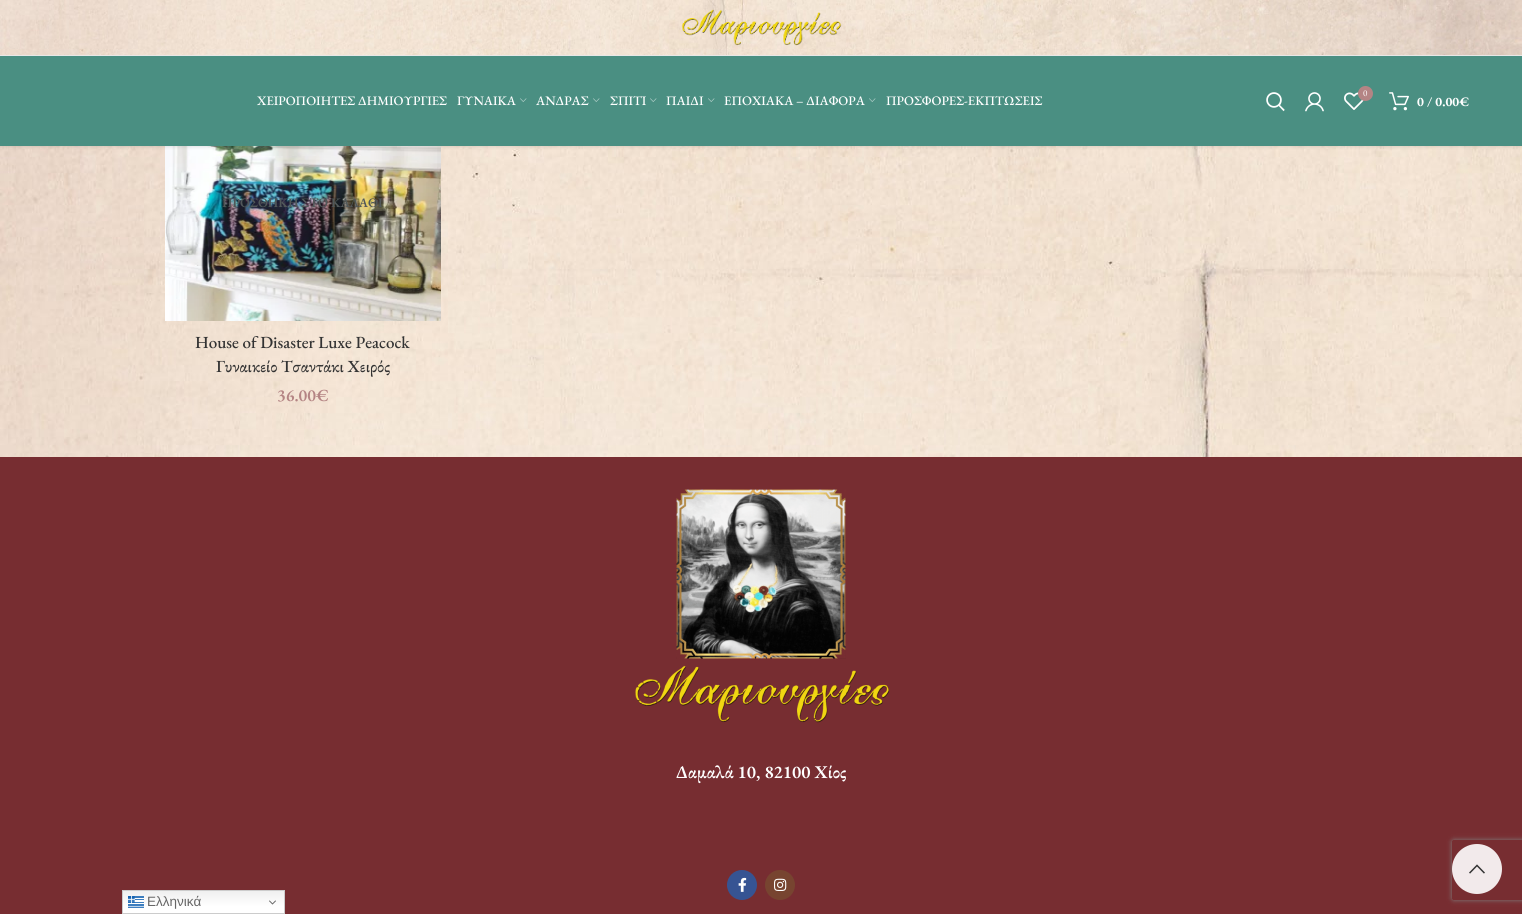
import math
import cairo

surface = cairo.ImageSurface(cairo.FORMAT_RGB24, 1522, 914)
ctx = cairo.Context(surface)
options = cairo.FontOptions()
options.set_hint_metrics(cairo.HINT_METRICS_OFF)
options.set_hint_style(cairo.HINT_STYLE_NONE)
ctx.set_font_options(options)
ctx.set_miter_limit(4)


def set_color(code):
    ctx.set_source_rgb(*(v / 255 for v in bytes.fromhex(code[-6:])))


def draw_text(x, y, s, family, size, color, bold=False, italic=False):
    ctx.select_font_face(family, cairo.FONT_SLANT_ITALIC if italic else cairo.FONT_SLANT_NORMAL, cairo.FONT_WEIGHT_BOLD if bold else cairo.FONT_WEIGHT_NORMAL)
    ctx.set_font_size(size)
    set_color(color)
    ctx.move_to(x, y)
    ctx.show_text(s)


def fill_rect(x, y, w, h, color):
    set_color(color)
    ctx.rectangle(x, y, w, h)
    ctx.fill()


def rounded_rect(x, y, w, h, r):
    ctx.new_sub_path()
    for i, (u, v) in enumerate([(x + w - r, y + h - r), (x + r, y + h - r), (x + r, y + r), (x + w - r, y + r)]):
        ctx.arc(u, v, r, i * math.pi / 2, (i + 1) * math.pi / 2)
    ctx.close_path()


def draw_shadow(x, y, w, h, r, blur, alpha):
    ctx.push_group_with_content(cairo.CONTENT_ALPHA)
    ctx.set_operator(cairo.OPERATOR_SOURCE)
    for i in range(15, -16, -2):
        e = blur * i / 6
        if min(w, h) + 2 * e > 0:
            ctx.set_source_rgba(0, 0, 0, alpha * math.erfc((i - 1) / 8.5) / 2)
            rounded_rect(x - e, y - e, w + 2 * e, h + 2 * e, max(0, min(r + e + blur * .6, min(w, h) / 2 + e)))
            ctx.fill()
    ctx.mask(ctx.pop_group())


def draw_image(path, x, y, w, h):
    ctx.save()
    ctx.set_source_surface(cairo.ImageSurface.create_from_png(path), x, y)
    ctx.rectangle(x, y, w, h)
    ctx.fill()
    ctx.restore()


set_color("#ffffff")
ctx.paint()
draw_image("assets/img8.png", 0, 146, 1522, 311)
draw_image("assets/img9.png", 165, 146, 276, 175)
set_color("#000000")
draw_shadow(0, 1, 1522, 146, 0, 1.5, 0.1)
draw_image("assets/img1.png", 0, 0, 1522, 55)
fill_rect(0, 55, 1522, 1, "#e8e8e8")
draw_image("assets/img2.png", 682, 9, 160, 37)
fill_rect(0, 56, 1522, 90, "#4a8f82")
draw_text(257, 105, "ΧΕΙΡΟΠΟΙΗΤΕΣ ΔΗΜΙΟΥΡΓΙΕΣ", "EB Garamond Medium", 13, "#ffffff")
draw_text(457, 105, "ΓΥΝΑΙΚΑ", "EB Garamond Medium", 13, "#ffffff")
draw_image("assets/img3.png", 520, 98, 7, 4)
draw_text(536, 105, "ΑΝΔΡΑΣ", "EB Garamond Medium", 13, "#ffffff")
draw_image("assets/img3.png", 593, 98, 7, 4)
draw_text(610, 105, "ΣΠΙΤΙ", "EB Garamond Medium", 13, "#ffffff")
draw_image("assets/img3.png", 650, 98, 7, 4)
draw_text(666, 105, "ΠΑΙΔΙ", "EB Garamond Medium", 13, "#ffffff")
draw_image("assets/img3.png", 708, 98, 7, 4)
draw_text(724, 105, "ΕΠΟΧΙΑΚΑ – ΔΙΑΦΟΡΑ", "EB Garamond Medium", 13, "#ffffff")
draw_image("assets/img3.png", 869, 98, 7, 4)
draw_text(886, 105, "ΠΡΟΣΦΟΡΕΣ-ΕΚΠΤΩΣΕΙΣ", "EB Garamond Medium", 13, "#ffffff")
draw_image("assets/img4.png", 1266, 92, 19, 20)
draw_image("assets/img5.png", 1305, 92, 19, 20)
draw_image("assets/img6.png", 1344, 92, 20, 18)
set_color("#b48484")
ctx.arc(1365.5, 93.5, 7.5, 0, 2 * math.pi)
ctx.fill()
draw_text(1363, 96, "0", "EB Garamond", 9, "#ffffff")
draw_image("assets/img7.png", 1389, 92, 20, 19)
draw_text(1417, 106, "0 / 0.00€", "EB Garamond", 13, "#ffffff", bold=True)
draw_text(222, 207, "ΠΡΟΣΘΗΚΗ ΣΤΟ ΚΑΛΑΘΙ", "EB Garamond SemiBold", 13, "#515859")
draw_text(195, 348, "House of Disaster Luxe Peacock", "EB Garamond Medium", 17, "#333333")
draw_text(216, 372, "Γυναικείο Τσαντάκι Χειρός", "EB Garamond Medium", 17, "#333333")
draw_text(277, 401, "36.00€", "EB Garamond SemiBold", 17, "#b48484")
fill_rect(0, 457, 1522, 457, "#772d31")
draw_image("assets/img10.png", 635, 489, 255, 234)
draw_text(676, 778, "Δαμαλά 10, 82100 Χίος", "EB Garamond SemiBold", 18, "#ffffff")
set_color("#365493")
ctx.new_path()
ctx.arc(742, 885, 15, 0, 2 * math.pi)
ctx.fill()
draw_image("assets/img11.png", 738, 877, 9, 15)
set_color("#774430")
ctx.arc(780, 885, 15, 0, 2 * math.pi)
ctx.fill()
draw_image("assets/img12.png", 774, 878, 13, 13)
ctx.set_source_rgba(1, 1, 1, 0.9)
ctx.arc(1477, 869, 25, 0, 2 * math.pi)
ctx.fill()
draw_image("assets/img13.png", 1469, 864, 16, 10)
gradient = cairo.LinearGradient(204, 890, 204, 914)
gradient.add_color_stop_rgba(0, 0.937, 0.937, 0.937, 1)
gradient.add_color_stop_rgba(0.7, 1, 1, 1, 1)
ctx.set_source(gradient)
ctx.rectangle(123, 891, 161, 22)
ctx.fill()
ctx.rectangle(122.5, 890.5, 162, 23)
set_color("#cccccc")
ctx.set_line_width(1)
ctx.stroke()
draw_image("assets/img14.png", 128, 896, 16, 12)
draw_text(147, 906, "Ελληνικά", "Liberation Sans", 13.5, "#666666")
draw_image("assets/img15.png", 269, 900, 7, 5)
ctx.save()
ctx.set_fill_rule(cairo.FILL_RULE_EVEN_ODD)
ctx.new_path()
ctx.move_to(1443, 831)
ctx.line_to(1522, 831)
ctx.line_to(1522, 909)
ctx.line_to(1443, 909)
ctx.close_path()
ctx.move_to(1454, 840)
ctx.line_to(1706, 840)
ctx.curve_to(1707, 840, 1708, 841, 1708, 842)
ctx.line_to(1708, 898)
ctx.curve_to(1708, 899, 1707, 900, 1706, 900)
ctx.line_to(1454, 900)
ctx.curve_to(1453, 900, 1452, 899, 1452, 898)
ctx.line_to(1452, 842)
ctx.curve_to(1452, 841, 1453, 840, 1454, 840)
ctx.close_path()
ctx.clip()
set_color("#808080")
draw_shadow(1452, 840, 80, 60, 2, 2.5, 1)
ctx.restore()
surface.write_to_png("output.png")
